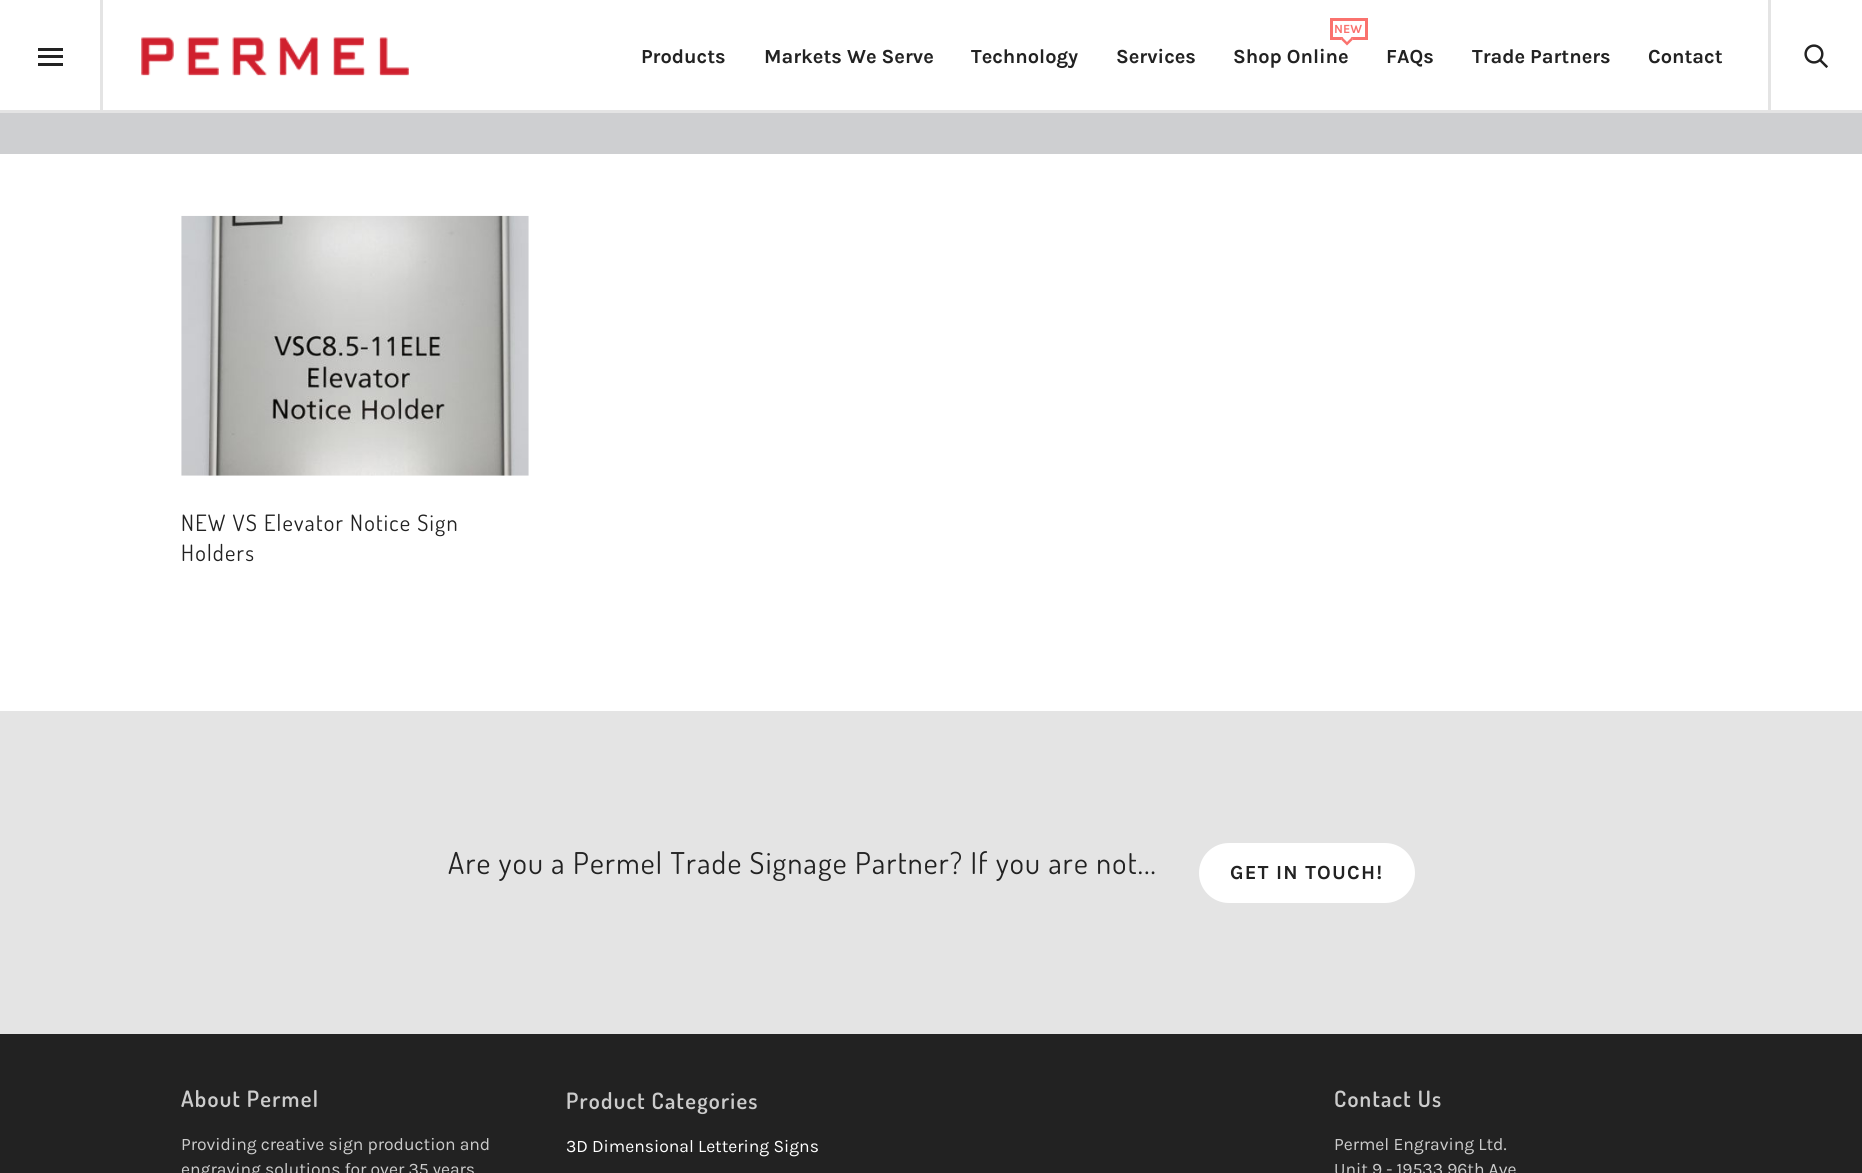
import math
import cairo

surface = cairo.ImageSurface(cairo.FORMAT_RGB24, 1862, 1173)
ctx = cairo.Context(surface)
options = cairo.FontOptions()
options.set_hint_metrics(cairo.HINT_METRICS_OFF)
options.set_hint_style(cairo.HINT_STYLE_NONE)
ctx.set_font_options(options)
ctx.set_miter_limit(4)


def set_color(code):
    ctx.set_source_rgb(*(v / 255 for v in bytes.fromhex(code[-6:])))


def draw_text(x, y, s, family, size, color, bold=False, italic=False):
    ctx.select_font_face(family, cairo.FONT_SLANT_ITALIC if italic else cairo.FONT_SLANT_NORMAL, cairo.FONT_WEIGHT_BOLD if bold else cairo.FONT_WEIGHT_NORMAL)
    ctx.set_font_size(size)
    set_color(color)
    ctx.move_to(x, y)
    ctx.show_text(s)


def draw_spaced(x, y, s, letter, word):
    ctx.move_to(x, y)
    for ch in s:
        ctx.show_text(ch)
        ctx.rel_move_to(letter + word * (ch == ' '), 0)


def fill_rect(x, y, w, h, color):
    set_color(color)
    ctx.rectangle(x, y, w, h)
    ctx.fill()


def rounded_rect(x, y, w, h, r):
    ctx.new_sub_path()
    for i, (u, v) in enumerate([(x + w - r, y + h - r), (x + r, y + h - r), (x + r, y + r), (x + w - r, y + r)]):
        ctx.arc(u, v, r, i * math.pi / 2, (i + 1) * math.pi / 2)
    ctx.close_path()


def draw_image(path, x, y, w, h):
    ctx.save()
    ctx.set_source_surface(cairo.ImageSurface.create_from_png(path), x, y)
    ctx.rectangle(x, y, w, h)
    ctx.fill()
    ctx.restore()


set_color("#222222")
ctx.paint()
fill_rect(0, 0, 1862, 110, "#ffffff")
fill_rect(0, 110, 1862, 3, "#e4e4e4")
fill_rect(100, 0, 3, 113, "#e4e4e4")
fill_rect(38, 55, 25, 3, "#222222")
fill_rect(38, 48, 25, 3, "#222222")
fill_rect(38, 63, 25, 3, "#222222")
draw_image("assets/img1.png", 141, 37, 268, 39)
draw_text(641, 63, "Products", "Karla", 20, "#222222", bold=True)
draw_text(764, 63, "Markets We Serve", "Karla", 20, "#222222", bold=True)
draw_text(971, 63, "Technology", "Karla", 20, "#222222", bold=True)
draw_text(1116, 63, "Services", "Karla", 20, "#222222", bold=True)
ctx.rectangle(1331.5, 19.5, 35, 19)
set_color("#fa726e")
ctx.set_line_width(3)
ctx.stroke()
draw_text(1334, 33, "NEW", "Karla", 12.5, "#fa726e", bold=True)
set_color("#ffffff")
ctx.new_path()
ctx.move_to(1347, 45.5)
ctx.line_to(1341, 39.5)
ctx.line_to(1347, 33)
ctx.line_to(1353, 39.5)
ctx.close_path()
ctx.fill()
set_color("#fa726e")
ctx.new_path()
ctx.move_to(1347, 42)
ctx.line_to(1351.5, 37.5)
ctx.line_to(1353, 39.5)
ctx.line_to(1347, 45.5)
ctx.line_to(1341, 39.5)
ctx.line_to(1342.5, 37.5)
ctx.close_path()
ctx.fill()
draw_text(1233, 63, "Shop Online", "Karla", 20, "#222222", bold=True)
draw_text(1386, 63, "FAQs", "Karla", 20, "#222222", bold=True)
draw_text(1472, 63, "Trade Partners", "Karla", 20, "#222222", bold=True)
draw_text(1648, 63, "Contact", "Karla", 20, "#222222", bold=True)
fill_rect(1768, 0, 3, 113, "#e4e4e4")
draw_image("assets/img2.png", 1804, 44, 24, 24)
fill_rect(0, 154, 1862, 557, "#ffffff")
fill_rect(0, 113, 1862, 41, "#cecfd1")
draw_image("assets/img3.png", 181, 215, 348, 261)
ctx.select_font_face("Dosis")
ctx.set_font_size(22.5)
set_color("#222222")
draw_spaced(181, 531, "NEW VS Elevator Notice Sign", 1.25, 0)
draw_spaced(181, 561, "Holders", 1.25, 0)
fill_rect(0, 711, 1862, 323, "#e4e4e4")
ctx.set_font_size(30)
set_color("#222222")
draw_spaced(448, 874, "Are you a Permel Trade Signage Partner? If you are not...", 1.25, 0)
set_color("#ffffff")
rounded_rect(1199, 843, 216, 60, 30)
ctx.fill()
ctx.select_font_face("Karla", cairo.FONT_SLANT_NORMAL, cairo.FONT_WEIGHT_BOLD)
ctx.set_font_size(20)
set_color("#222222")
draw_spaced(1230, 879, "GET IN TOUCH!", 1.25, 0)
ctx.select_font_face("Dosis SemiBold")
ctx.set_font_size(22.5)
set_color("#cccccc")
draw_spaced(181, 1107, "About Permel", 1.25, 0)
draw_text(181, 1150, "Providing creative sign production and", "Karla", 17.5, "#cccccc")
draw_text(181, 1175, "engraving solutions for over 35 years", "Karla", 17.5, "#cccccc")
ctx.select_font_face("Dosis SemiBold")
ctx.set_font_size(22.5)
draw_spaced(566, 1109, "Product Categories", 1.25, 0)
draw_text(566, 1152, "3D Dimensional Lettering Signs", "Karla", 17.5, "#ffffff")
ctx.select_font_face("Dosis SemiBold")
ctx.set_font_size(22.5)
set_color("#cccccc")
draw_spaced(1334, 1107, "Contact Us", 1.25, 0)
draw_text(1334, 1150, "Permel Engraving Ltd.", "Karla", 17.5, "#cccccc")
draw_text(1334, 1175, "Unit 9 - 19533 96th Ave", "Karla", 17.5, "#cccccc")
surface.write_to_png("output.png")
